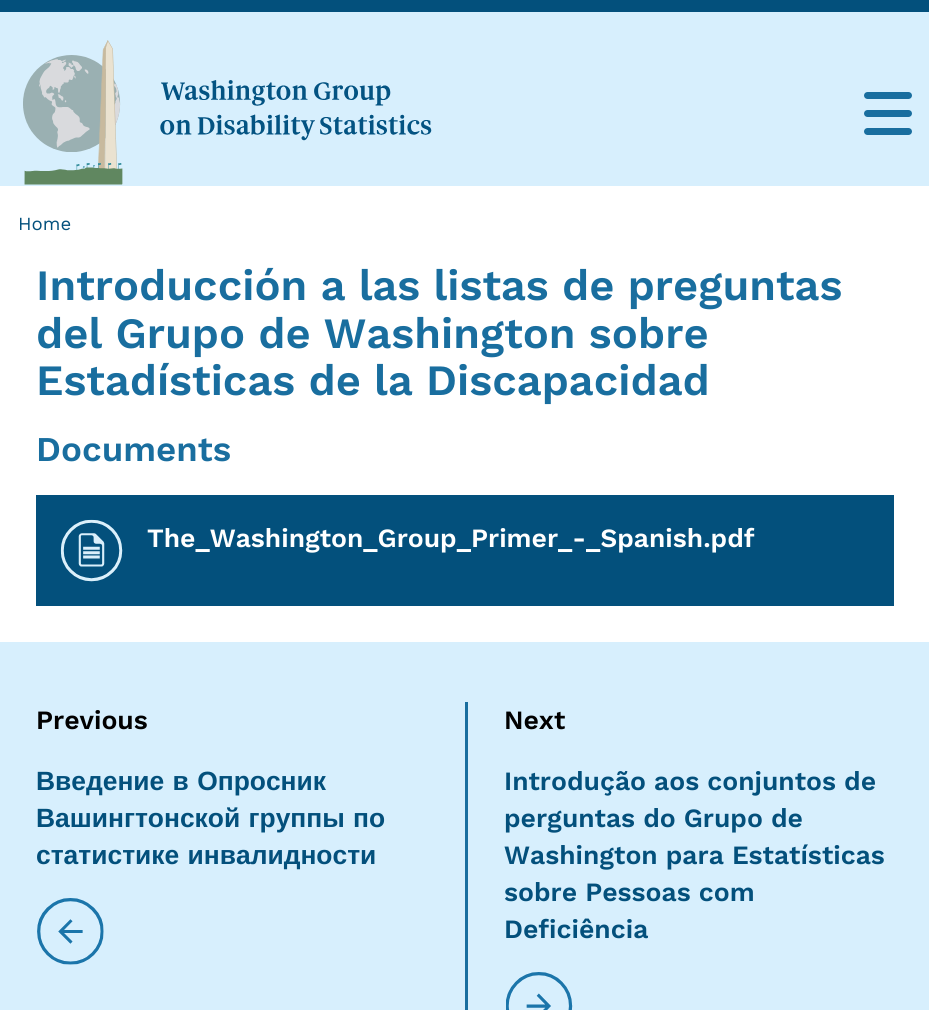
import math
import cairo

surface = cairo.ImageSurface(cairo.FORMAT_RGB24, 929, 1010)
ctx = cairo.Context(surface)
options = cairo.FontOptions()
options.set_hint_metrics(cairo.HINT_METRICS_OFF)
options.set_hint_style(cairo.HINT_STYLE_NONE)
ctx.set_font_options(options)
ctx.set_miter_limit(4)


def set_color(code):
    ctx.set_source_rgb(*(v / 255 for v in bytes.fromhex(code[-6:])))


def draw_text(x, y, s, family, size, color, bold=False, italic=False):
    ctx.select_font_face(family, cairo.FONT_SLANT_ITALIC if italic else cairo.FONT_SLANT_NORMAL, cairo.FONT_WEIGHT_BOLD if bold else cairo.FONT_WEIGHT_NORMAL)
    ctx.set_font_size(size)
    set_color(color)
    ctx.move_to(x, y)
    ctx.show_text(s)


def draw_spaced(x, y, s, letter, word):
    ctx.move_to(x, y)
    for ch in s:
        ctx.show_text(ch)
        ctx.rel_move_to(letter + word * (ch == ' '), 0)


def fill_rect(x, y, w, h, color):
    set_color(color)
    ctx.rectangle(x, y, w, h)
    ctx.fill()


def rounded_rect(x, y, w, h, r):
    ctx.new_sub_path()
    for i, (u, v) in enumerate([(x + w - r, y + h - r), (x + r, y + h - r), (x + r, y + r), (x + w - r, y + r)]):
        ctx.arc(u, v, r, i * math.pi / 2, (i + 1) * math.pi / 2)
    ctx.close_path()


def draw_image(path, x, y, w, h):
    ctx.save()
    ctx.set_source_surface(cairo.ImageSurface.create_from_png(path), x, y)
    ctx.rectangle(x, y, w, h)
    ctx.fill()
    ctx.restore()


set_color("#ffffff")
ctx.paint()
fill_rect(0, 0, 929, 12, "#03507c")
fill_rect(0, 12, 929, 174, "#d7effd")
draw_image("assets/img1.png", 23, 40, 409, 145)
set_color("#196e9f")
rounded_rect(864, 92, 48, 7, 3.5)
ctx.fill()
rounded_rect(864, 110, 48, 7, 3.5)
ctx.fill()
rounded_rect(864, 128, 48, 7, 3.5)
ctx.fill()
draw_text(18, 230, "Home", "Work Sans", 18.5, "#03507c")
draw_text(36, 300, "Introducción a las listas de preguntas", "Work Sans SemiBold", 43.25, "#196e9f")
draw_text(36, 348, "del Grupo de Washington sobre", "Work Sans SemiBold", 43.25, "#196e9f")
draw_text(36, 395, "Estadísticas de la Discapacidad", "Work Sans SemiBold", 43.25, "#196e9f")
draw_text(36, 461, "Documents", "Work Sans SemiBold", 34.75, "#196e9f")
fill_rect(36, 495, 858, 111, "#03507c")
draw_image("assets/img2.png", 60, 519, 63, 63)
draw_text(147, 547, "The_Washington_Group_Primer_-_Spanish.pdf", "Work Sans SemiBold", 26.4, "#ffffff")
fill_rect(0, 642, 929, 368, "#d7effd")
draw_text(36, 729, "Previous", "Work Sans SemiBold", 26.4, "#000000")
ctx.select_font_face("Liberation Sans", cairo.FONT_SLANT_NORMAL, cairo.FONT_WEIGHT_BOLD)
set_color("#03507c")
draw_spaced(36, 790, "Введение в Опросник", 0, 1)
draw_spaced(36, 827, "Вашингтонской группы по", 0, 1)
draw_spaced(36, 864, "статистике инвалидности", 0, 1)
draw_image("assets/img3.png", 37, 898, 67, 67)
fill_rect(465, 702, 3, 308, "#196e9f")
draw_text(504, 729, "Next", "Work Sans SemiBold", 26.4, "#000000")
draw_text(504, 790, "Introdução aos conjuntos de", "Work Sans SemiBold", 26.4, "#03507c")
draw_text(504, 827, "perguntas do Grupo de", "Work Sans SemiBold", 26.4, "#03507c")
draw_text(504, 864, "Washington para Estatísticas", "Work Sans SemiBold", 26.4, "#03507c")
draw_text(504, 901, "sobre Pessoas com", "Work Sans SemiBold", 26.4, "#03507c")
draw_text(504, 938, "Deficiência", "Work Sans SemiBold", 26.4, "#03507c")
draw_image("assets/img4.png", 506, 972, 67, 38)
surface.write_to_png("output.png")
